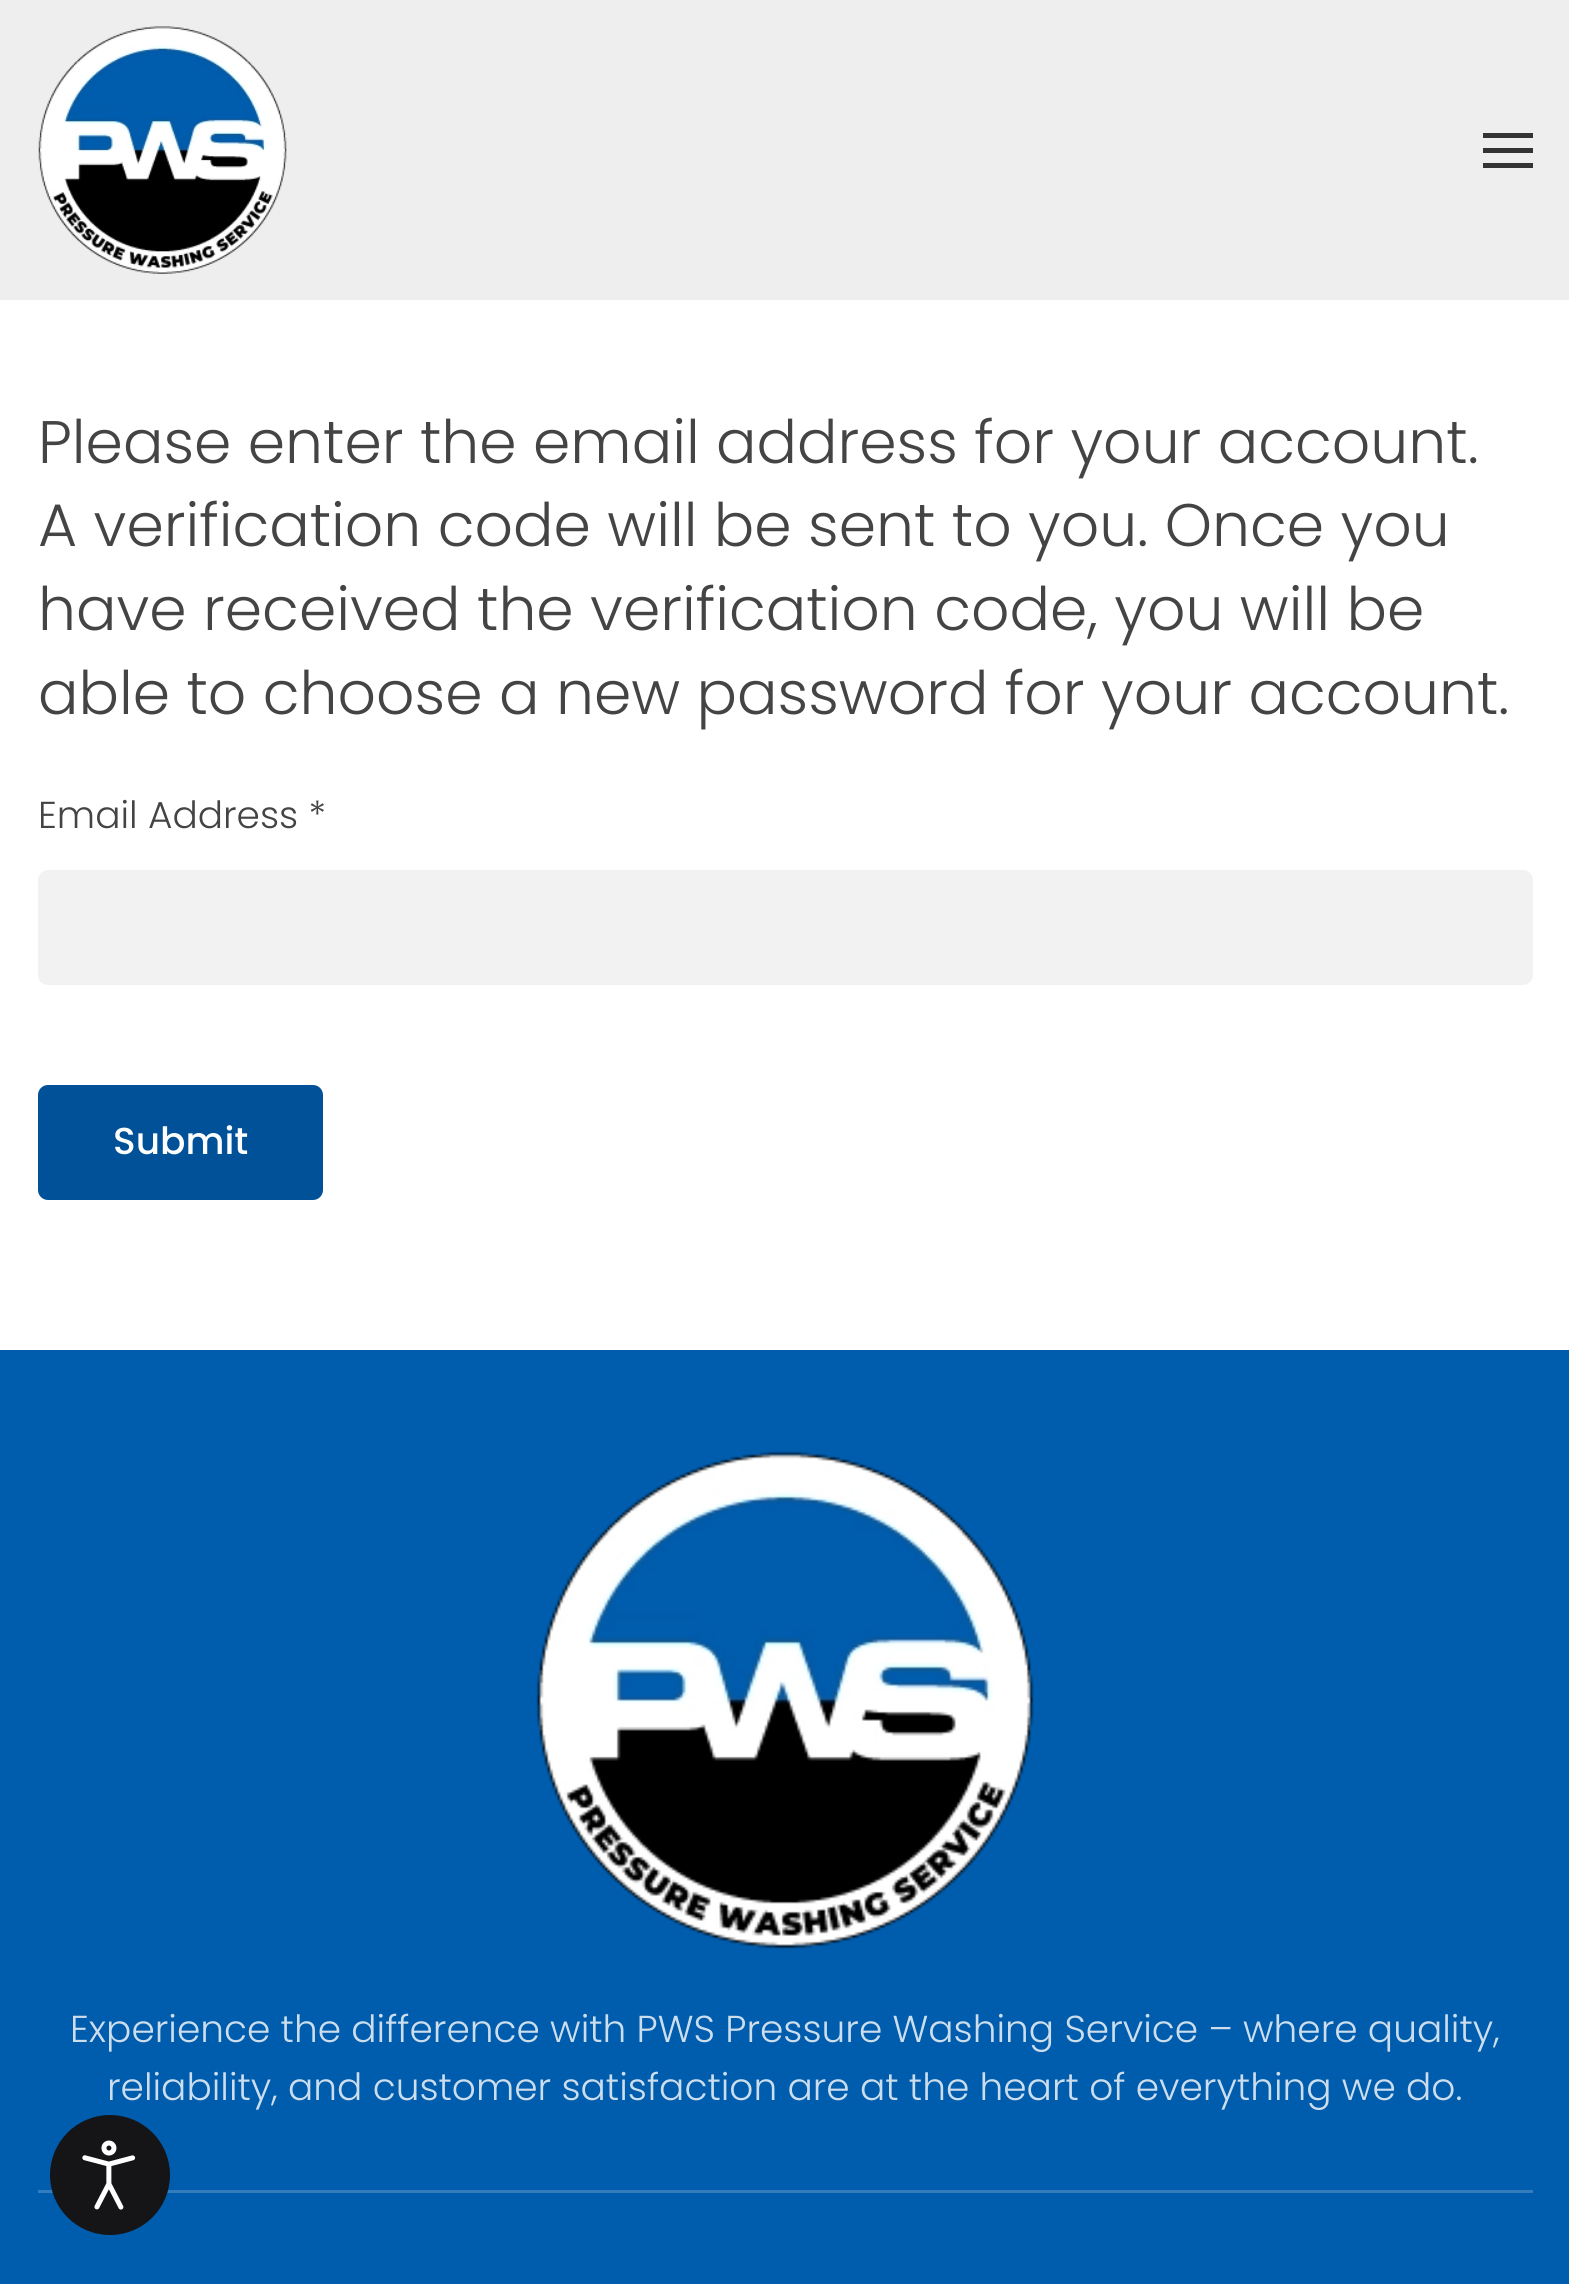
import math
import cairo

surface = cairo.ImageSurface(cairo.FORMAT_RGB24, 1569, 2284)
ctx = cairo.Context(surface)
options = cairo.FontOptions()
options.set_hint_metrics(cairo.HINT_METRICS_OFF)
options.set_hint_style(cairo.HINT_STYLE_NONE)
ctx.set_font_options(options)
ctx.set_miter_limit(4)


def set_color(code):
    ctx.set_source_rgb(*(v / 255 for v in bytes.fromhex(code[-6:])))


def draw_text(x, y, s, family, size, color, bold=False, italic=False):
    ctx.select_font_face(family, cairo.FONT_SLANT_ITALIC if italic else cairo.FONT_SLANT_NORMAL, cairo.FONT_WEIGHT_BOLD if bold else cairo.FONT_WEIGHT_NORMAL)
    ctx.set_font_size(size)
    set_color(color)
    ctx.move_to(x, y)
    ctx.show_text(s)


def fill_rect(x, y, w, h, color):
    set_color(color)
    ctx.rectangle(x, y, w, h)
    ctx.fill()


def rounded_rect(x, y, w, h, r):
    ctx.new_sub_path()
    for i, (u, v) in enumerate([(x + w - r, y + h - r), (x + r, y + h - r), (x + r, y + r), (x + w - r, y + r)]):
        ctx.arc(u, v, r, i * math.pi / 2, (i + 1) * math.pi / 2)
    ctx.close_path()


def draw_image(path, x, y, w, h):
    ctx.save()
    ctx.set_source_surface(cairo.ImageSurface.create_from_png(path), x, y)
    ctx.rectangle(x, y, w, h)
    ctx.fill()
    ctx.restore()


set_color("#ffffff")
ctx.paint()
fill_rect(0, 0, 1569, 300, "#eeeeee")
draw_image("assets/img1.png", 38, 26, 249, 248)
fill_rect(1483, 133, 50, 5, "#333333")
fill_rect(1483, 148, 50, 5, "#333333")
fill_rect(1483, 163, 50, 5, "#333333")
draw_text(38, 463, "Please enter the email address for your account.", "Poppins Light", 60, "#444444")
draw_text(38, 546, "A verification code will be sent to you. Once you", "Poppins Light", 60, "#444444")
draw_text(38, 630, "have received the verification code, you will be", "Poppins Light", 60, "#444444")
draw_text(38, 714, "able to choose a new password for your account.", "Poppins Light", 60, "#444444")
draw_text(38, 828, "Email Address *", "Poppins Light", 37.5, "#444444")
set_color("#f2f2f2")
rounded_rect(38, 870, 1495, 115, 10)
ctx.fill()
set_color("#005198")
rounded_rect(38, 1085, 285, 115, 10)
ctx.fill()
draw_text(113, 1154, "Submit", "Poppins Medium", 37.5, "#ffffff")
fill_rect(0, 1350, 1569, 934, "#005cac")
draw_image("assets/img2.png", 536, 1451, 498, 498)
draw_text(70, 2042, "Experience the difference with PWS Pressure Washing Service – where quality,", "Poppins Light", 37.5, "#ccdeee")
draw_text(107, 2100, "reliability, and customer satisfaction are at the heart of everything we do.", "Poppins Light", 37.5, "#ccdeee")
fill_rect(38, 2190, 1495, 3, "#337dbd")
set_color("#151518")
ctx.new_path()
ctx.arc(110, 2175, 60, 0, 2 * math.pi)
ctx.fill()
draw_image("assets/img3.png", 82, 2140, 54, 70)
surface.write_to_png("output.png")
